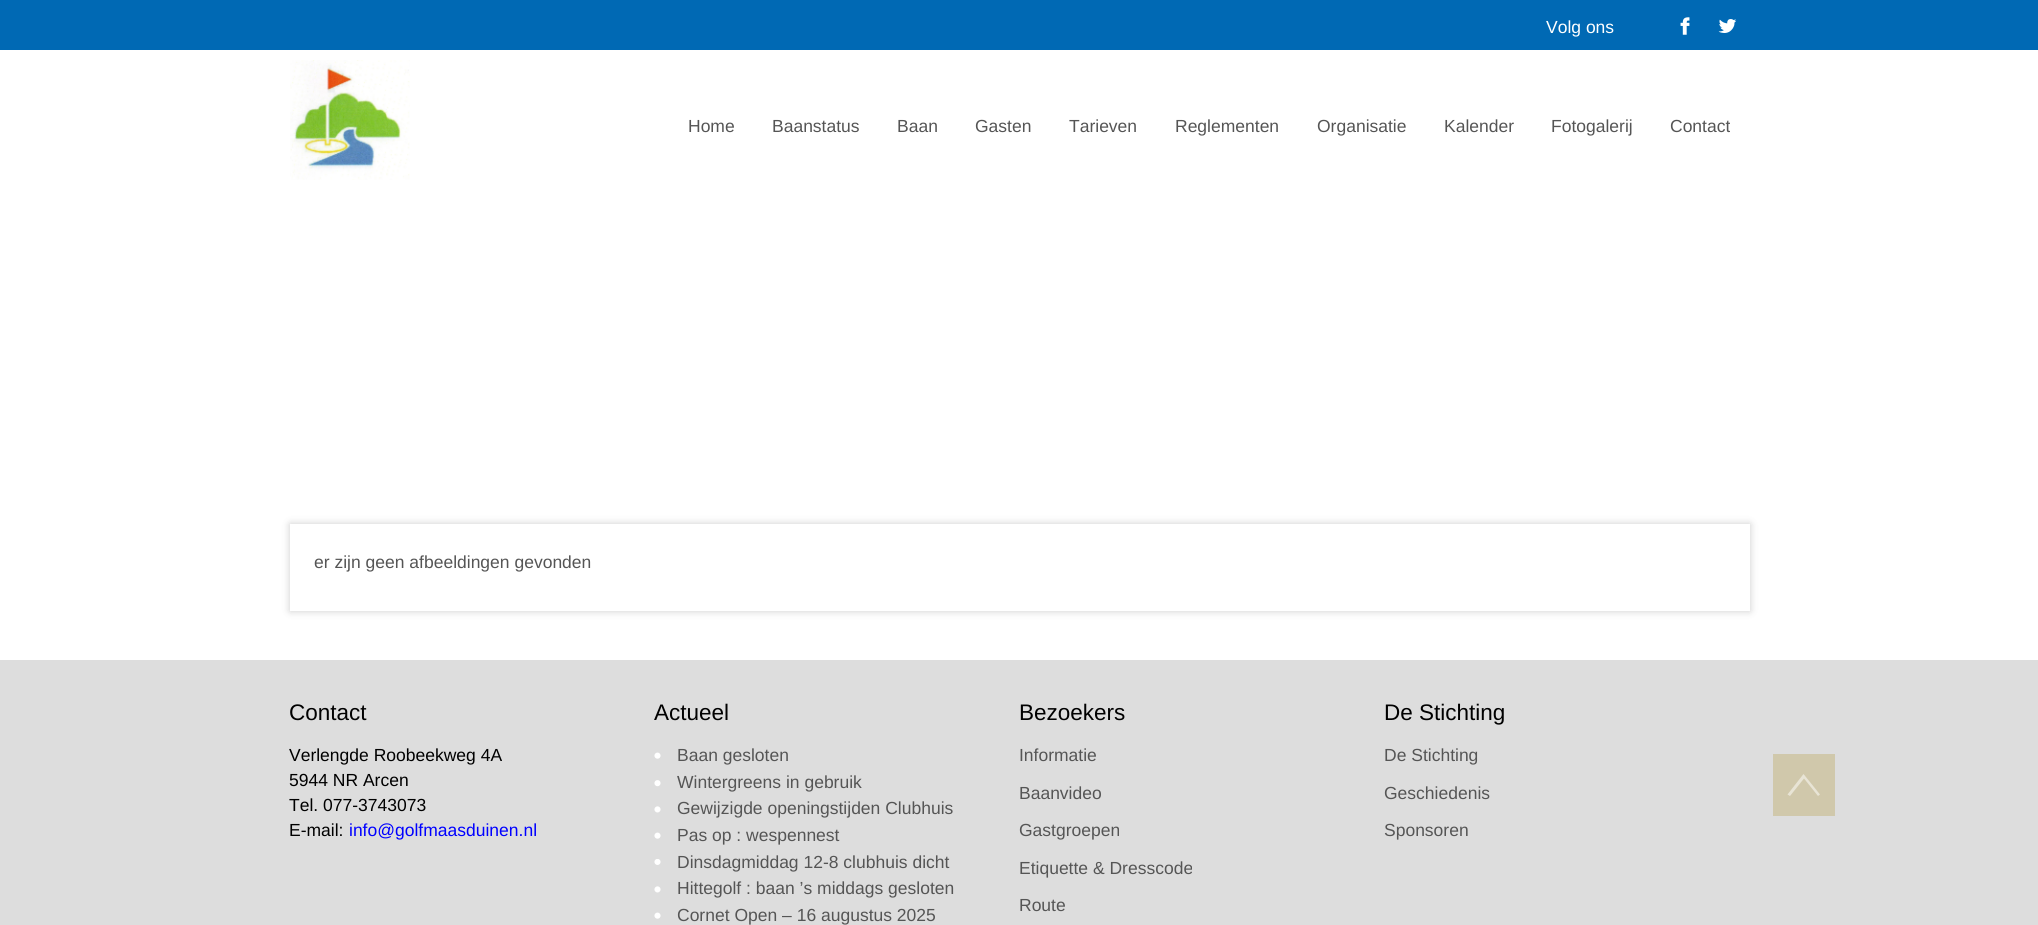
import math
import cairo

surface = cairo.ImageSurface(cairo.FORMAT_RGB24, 2038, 925)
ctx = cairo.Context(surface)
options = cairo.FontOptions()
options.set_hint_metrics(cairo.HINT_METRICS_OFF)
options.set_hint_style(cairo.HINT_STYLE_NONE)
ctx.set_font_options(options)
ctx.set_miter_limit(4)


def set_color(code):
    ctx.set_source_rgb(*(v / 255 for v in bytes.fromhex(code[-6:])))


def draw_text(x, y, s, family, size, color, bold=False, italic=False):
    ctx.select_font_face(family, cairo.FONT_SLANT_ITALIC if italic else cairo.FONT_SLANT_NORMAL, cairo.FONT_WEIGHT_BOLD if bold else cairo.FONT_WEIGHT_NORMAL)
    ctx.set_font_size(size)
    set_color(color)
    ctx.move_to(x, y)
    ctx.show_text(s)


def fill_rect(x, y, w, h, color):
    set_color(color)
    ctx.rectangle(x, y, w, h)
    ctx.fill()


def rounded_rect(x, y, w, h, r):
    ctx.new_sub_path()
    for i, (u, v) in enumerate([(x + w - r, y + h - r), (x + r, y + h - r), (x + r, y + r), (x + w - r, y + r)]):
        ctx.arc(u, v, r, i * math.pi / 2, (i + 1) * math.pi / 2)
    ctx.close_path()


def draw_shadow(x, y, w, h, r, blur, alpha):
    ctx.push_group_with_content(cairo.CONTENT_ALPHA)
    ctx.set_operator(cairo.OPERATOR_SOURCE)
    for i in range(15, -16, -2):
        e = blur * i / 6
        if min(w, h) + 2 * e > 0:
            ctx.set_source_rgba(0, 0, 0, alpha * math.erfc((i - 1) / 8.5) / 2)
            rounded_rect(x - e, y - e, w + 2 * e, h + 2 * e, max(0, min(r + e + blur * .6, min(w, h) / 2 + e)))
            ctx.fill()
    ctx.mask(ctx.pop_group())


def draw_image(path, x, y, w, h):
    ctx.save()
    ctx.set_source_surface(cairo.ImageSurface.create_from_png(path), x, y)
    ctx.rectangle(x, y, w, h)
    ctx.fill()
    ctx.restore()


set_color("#ffffff")
ctx.paint()
fill_rect(0, 0, 2038, 50, "#0069b4")
draw_text(1546, 33, "Volg ons", "Liberation Sans", 17.5, "#ffffff")
draw_image("assets/img1.png", 1680, 17, 10, 18)
draw_image("assets/img2.png", 1718, 19, 19, 14)
draw_image("assets/img3.png", 290, 60, 120, 120)
draw_text(688, 132, "Home", "Liberation Sans", 17.5, "#555555")
draw_text(772, 132, "Baanstatus", "Liberation Sans", 17.5, "#555555")
draw_text(897, 132, "Baan", "Liberation Sans", 17.5, "#555555")
draw_text(975, 132, "Gasten", "Liberation Sans", 17.5, "#555555")
draw_text(1069, 132, "Tarieven", "Liberation Sans", 17.5, "#555555")
draw_text(1175, 132, "Reglementen", "Liberation Sans", 17.5, "#555555")
draw_text(1317, 132, "Organisatie", "Liberation Sans", 17.5, "#555555")
draw_text(1444, 132, "Kalender", "Liberation Sans", 17.5, "#555555")
draw_text(1551, 132, "Fotogalerij", "Liberation Sans", 17.5, "#555555")
draw_text(1670, 132, "Contact", "Liberation Sans", 17.5, "#555555")
ctx.save()
ctx.set_fill_rule(cairo.FILL_RULE_EVEN_ODD)
ctx.new_path()
ctx.move_to(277, 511)
ctx.line_to(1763, 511)
ctx.line_to(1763, 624)
ctx.line_to(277, 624)
ctx.close_path()
ctx.move_to(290, 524)
ctx.line_to(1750, 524)
ctx.line_to(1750, 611)
ctx.line_to(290, 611)
ctx.close_path()
ctx.clip()
set_color("#333333")
draw_shadow(290, 524, 1460, 87, 0, 4, 0.25)
ctx.restore()
draw_text(314, 568, "er zijn geen afbeeldingen gevonden", "Liberation Sans", 17.5, "#555555")
fill_rect(0, 660, 2038, 265, "#dddddd")
draw_text(289, 720, "Contact", "Liberation Sans", 22.5, "#000000")
draw_text(289, 761, "Verlengde Roobeekweg 4A", "Liberation Sans", 17.5, "#000000")
draw_text(289, 786, "5944 NR Arcen", "Liberation Sans", 17.5, "#000000")
draw_text(289, 811, "Tel. 077-3743073", "Liberation Sans", 17.5, "#000000")
draw_text(289, 836, "E-mail:", "Liberation Sans", 17.5, "#000000")
draw_text(349, 836, "info@golfmaasduinen.nl", "Liberation Sans", 17.5, "#0000ff")
draw_text(654, 720, "Actueel", "Liberation Sans", 22.5, "#000000")
draw_image("assets/img4.png", 654, 752, 7, 7)
draw_text(677, 761, "Baan gesloten", "Liberation Sans", 17.5, "#555555")
draw_image("assets/img5.png", 654, 780, 7, 7)
draw_text(677, 788, "Wintergreens in gebruik", "Liberation Sans", 17.5, "#555555")
draw_image("assets/img6.png", 654, 806, 7, 7)
draw_text(677, 814, "Gewijzigde openingstijden Clubhuis", "Liberation Sans", 17.5, "#555555")
draw_image("assets/img4.png", 654, 832, 7, 7)
draw_text(677, 841, "Pas op : wespennest", "Liberation Sans", 17.5, "#555555")
draw_image("assets/img7.png", 654, 859, 7, 6)
draw_text(677, 868, "Dinsdagmiddag 12-8 clubhuis dicht", "Liberation Sans", 17.5, "#555555")
draw_image("assets/img6.png", 654, 886, 7, 7)
draw_text(677, 894, "Hittegolf : baan ’s middags gesloten", "Liberation Sans", 17.5, "#555555")
draw_image("assets/img4.png", 654, 912, 7, 7)
draw_text(677, 921, "Cornet Open – 16 augustus 2025", "Liberation Sans", 17.5, "#555555")
draw_text(1019, 720, "Bezoekers", "Liberation Sans", 22.5, "#000000")
draw_text(1019, 761, "Informatie", "Liberation Sans", 17.5, "#555555")
draw_text(1019, 799, "Baanvideo", "Liberation Sans", 17.5, "#555555")
draw_text(1019, 836, "Gastgroepen", "Liberation Sans", 17.5, "#555555")
draw_text(1019, 874, "Etiquette & Dresscode", "Liberation Sans", 17.5, "#555555")
draw_text(1019, 911, "Route", "Liberation Sans", 17.5, "#555555")
draw_text(1384, 720, "De Stichting", "Liberation Sans", 22.5, "#000000")
draw_text(1384, 761, "De Stichting", "Liberation Sans", 17.5, "#555555")
draw_text(1384, 799, "Geschiedenis", "Liberation Sans", 17.5, "#555555")
draw_text(1384, 836, "Sponsoren", "Liberation Sans", 17.5, "#555555")
fill_rect(1773, 754, 62, 62, "#d0c8ab")
set_color("#e8e4d5")
ctx.new_path()
ctx.move_to(1803.5, 774)
ctx.line_to(1820, 794.5)
ctx.line_to(1818, 796)
ctx.line_to(1804, 778.5)
ctx.line_to(1790, 796)
ctx.line_to(1787.5, 794.5)
ctx.close_path()
ctx.fill()
surface.write_to_png("output.png")
